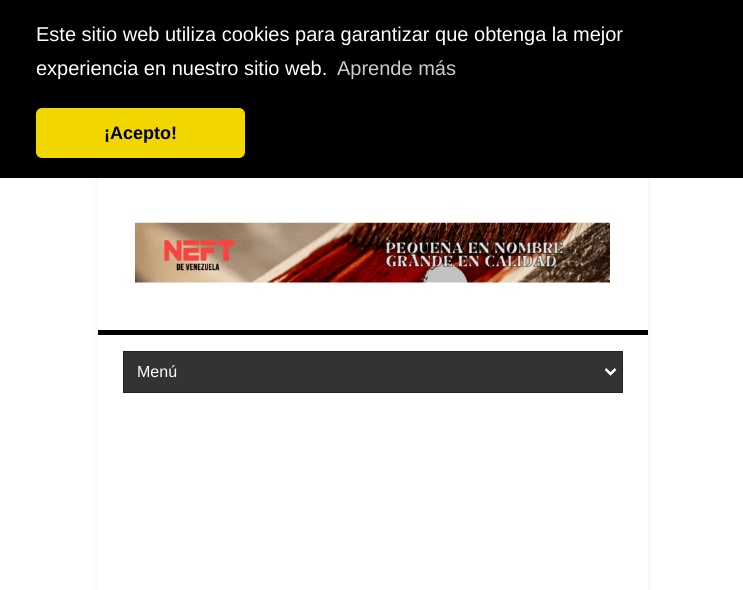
import math
import cairo

surface = cairo.ImageSurface(cairo.FORMAT_RGB24, 743, 590)
ctx = cairo.Context(surface)
options = cairo.FontOptions()
options.set_hint_metrics(cairo.HINT_METRICS_OFF)
options.set_hint_style(cairo.HINT_STYLE_NONE)
ctx.set_font_options(options)
ctx.set_miter_limit(4)


def set_color(code):
    ctx.set_source_rgb(*(v / 255 for v in bytes.fromhex(code[-6:])))


def draw_text(x, y, s, family, size, color, bold=False, italic=False):
    ctx.select_font_face(family, cairo.FONT_SLANT_ITALIC if italic else cairo.FONT_SLANT_NORMAL, cairo.FONT_WEIGHT_BOLD if bold else cairo.FONT_WEIGHT_NORMAL)
    ctx.set_font_size(size)
    set_color(color)
    ctx.move_to(x, y)
    ctx.show_text(s)


def fill_rect(x, y, w, h, color):
    set_color(color)
    ctx.rectangle(x, y, w, h)
    ctx.fill()


def rounded_rect(x, y, w, h, r):
    ctx.new_sub_path()
    for i, (u, v) in enumerate([(x + w - r, y + h - r), (x + r, y + h - r), (x + r, y + r), (x + w - r, y + r)]):
        ctx.arc(u, v, r, i * math.pi / 2, (i + 1) * math.pi / 2)
    ctx.close_path()


def draw_shadow(x, y, w, h, r, blur, alpha):
    ctx.push_group_with_content(cairo.CONTENT_ALPHA)
    ctx.set_operator(cairo.OPERATOR_SOURCE)
    for i in range(15, -16, -2):
        e = blur * i / 6
        if min(w, h) + 2 * e > 0:
            ctx.set_source_rgba(0, 0, 0, alpha * math.erfc((i - 1) / 8.5) / 2)
            rounded_rect(x - e, y - e, w + 2 * e, h + 2 * e, max(0, min(r + e + blur * .6, min(w, h) / 2 + e)))
            ctx.fill()
    ctx.mask(ctx.pop_group())


def draw_image(path, x, y, w, h):
    ctx.save()
    ctx.set_source_surface(cairo.ImageSurface.create_from_png(path), x, y)
    ctx.rectangle(x, y, w, h)
    ctx.fill()
    ctx.restore()


set_color("#ffffff")
ctx.paint()
set_color("#505050")
draw_shadow(98, 0, 550, 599, 0, 3, 0.1)
fill_rect(0, 0, 743, 178, "#000000")
draw_text(36, 41, "Este sitio web utiliza cookies para garantizar que obtenga la mejor", "Liberation Sans", 20, "#ffffff")
draw_text(36, 75, "experiencia en nuestro sitio web.", "Liberation Sans", 20, "#ffffff")
draw_text(337, 75, "Aprende más", "Liberation Sans", 20, "#cccccc")
set_color("#f1d600")
rounded_rect(36, 108, 209, 50, 6)
ctx.fill()
draw_text(104, 139, "¡Acepto!", "Liberation Sans", 18, "#000000", bold=True)
fill_rect(98, 178, 550, 412, "#ffffff")
draw_image("assets/img1.png", 135, 222, 475, 61)
fill_rect(98, 330, 550, 5, "#000000")
set_color("#333333")
ctx.rectangle(123.5, 351.5, 499, 41)
ctx.fill_preserve()
set_color("#232323")
ctx.set_line_width(1)
ctx.stroke()
ctx.new_path()
ctx.move_to(605.5, 369)
ctx.line_to(610.5, 374)
ctx.line_to(615.5, 369)
set_color("#ffffff")
ctx.set_line_width(2.5)
ctx.stroke()
draw_text(137, 377, "Menú", "Liberation Sans", 16, "#ffffff")
surface.write_to_png("output.png")
